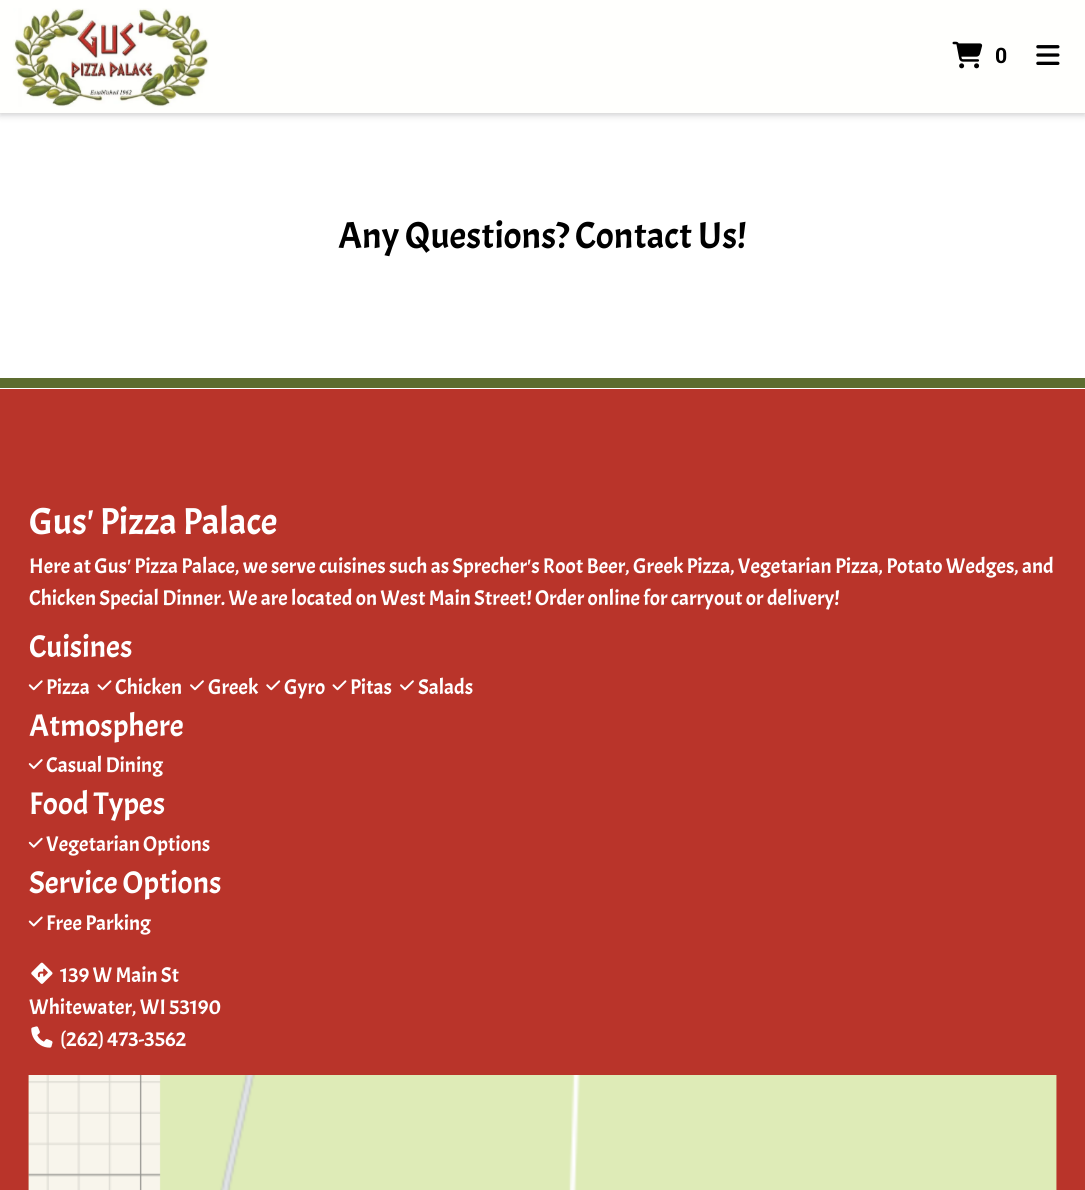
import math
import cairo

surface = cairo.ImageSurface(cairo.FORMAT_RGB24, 1085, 1190)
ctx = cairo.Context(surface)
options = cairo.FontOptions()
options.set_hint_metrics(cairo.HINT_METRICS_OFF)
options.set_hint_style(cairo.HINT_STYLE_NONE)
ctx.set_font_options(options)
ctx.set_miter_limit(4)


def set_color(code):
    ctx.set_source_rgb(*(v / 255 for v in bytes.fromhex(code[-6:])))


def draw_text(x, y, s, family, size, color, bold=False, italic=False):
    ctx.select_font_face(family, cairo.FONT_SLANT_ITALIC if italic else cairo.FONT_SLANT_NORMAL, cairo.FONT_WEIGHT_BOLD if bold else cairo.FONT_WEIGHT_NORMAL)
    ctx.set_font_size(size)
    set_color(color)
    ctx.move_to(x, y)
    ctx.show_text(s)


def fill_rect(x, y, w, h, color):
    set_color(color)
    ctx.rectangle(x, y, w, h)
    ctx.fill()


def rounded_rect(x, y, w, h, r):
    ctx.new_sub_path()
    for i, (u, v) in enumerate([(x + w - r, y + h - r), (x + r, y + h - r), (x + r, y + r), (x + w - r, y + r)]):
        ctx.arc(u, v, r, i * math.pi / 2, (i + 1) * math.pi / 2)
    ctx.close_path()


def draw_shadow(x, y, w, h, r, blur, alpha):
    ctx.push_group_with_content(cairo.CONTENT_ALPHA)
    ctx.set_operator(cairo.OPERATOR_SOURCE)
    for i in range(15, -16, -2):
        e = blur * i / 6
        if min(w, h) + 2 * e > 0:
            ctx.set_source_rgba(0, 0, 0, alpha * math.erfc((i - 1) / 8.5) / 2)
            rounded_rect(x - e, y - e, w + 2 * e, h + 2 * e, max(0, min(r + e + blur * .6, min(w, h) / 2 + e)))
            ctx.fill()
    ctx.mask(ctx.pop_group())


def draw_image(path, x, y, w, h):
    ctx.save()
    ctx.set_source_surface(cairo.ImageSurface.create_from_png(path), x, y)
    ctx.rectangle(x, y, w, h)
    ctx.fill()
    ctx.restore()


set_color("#ffffff")
ctx.paint()
set_color("#202124")
draw_shadow(0, 1, 1085, 113, 0, 4, 0.28)
fill_rect(0, 0, 1085, 113, "#fffffd")
draw_image("assets/img1.png", 13, 8, 196, 99)
draw_image("assets/img2.png", 952, 41, 31, 28)
draw_text(995, 63, "0", "Roboto", 21.25, "#000000", bold=True)
draw_image("assets/img3.png", 1036, 45, 24, 20)
draw_text(338, 248, "Any Questions? Contact Us!", "Acme", 37.5, "#000000")
fill_rect(0, 378, 1085, 10, "#5d6c30")
fill_rect(0, 389, 1085, 801, "#b9342a")
draw_text(29, 534, "Gus' Pizza Palace", "Acme", 37.5, "#ffffff")
draw_text(29, 573, "Here at Gus' Pizza Palace, we serve cuisines such as Sprecher's Root Beer, Greek Pizza, Vegetarian Pizza, Potato Wedges, and", "Acme", 21.25, "#ffffff")
draw_text(29, 605, "Chicken Special Dinner. We are located on West Main Street! Order online for carryout or delivery!", "Acme", 21.25, "#ffffff")
draw_text(29, 657, "Cuisines", "Acme", 31.25, "#ffffff")
draw_image("assets/img4.png", 28, 680, 15, 11)
draw_text(46, 694, "Pizza", "Acme", 21.25, "#ffffff")
draw_image("assets/img5.png", 97, 680, 15, 11)
draw_text(115, 694, "Chicken", "Acme", 21.25, "#ffffff")
draw_image("assets/img6.png", 190, 680, 14, 11)
draw_text(208, 694, "Greek", "Acme", 21.25, "#ffffff")
draw_image("assets/img7.png", 266, 680, 15, 11)
draw_text(284, 694, "Gyro", "Acme", 21.25, "#ffffff")
draw_image("assets/img5.png", 332, 680, 15, 11)
draw_text(350, 694, "Pitas", "Acme", 21.25, "#ffffff")
draw_image("assets/img6.png", 400, 680, 14, 11)
draw_text(418, 694, "Salads", "Acme", 21.25, "#ffffff")
draw_text(29, 736, "Atmosphere", "Acme", 31.25, "#ffffff")
draw_image("assets/img8.png", 28, 759, 15, 10)
draw_text(46, 772, "Casual Dining", "Acme", 21.25, "#ffffff")
draw_text(29, 814, "Food Types", "Acme", 31.25, "#ffffff")
draw_image("assets/img9.png", 28, 837, 15, 11)
draw_text(46, 851, "Vegetarian Options", "Acme", 21.25, "#ffffff")
draw_text(29, 893, "Service Options", "Acme", 31.25, "#ffffff")
draw_image("assets/img10.png", 28, 916, 15, 11)
draw_text(46, 930, "Free Parking", "Acme", 21.25, "#ffffff")
draw_image("assets/img11.png", 31, 962, 22, 22)
draw_text(60, 982, "139 W Main St", "Acme", 21.25, "#ffffff")
draw_text(29, 1014, "Whitewater, WI 53190", "Acme", 21.25, "#ffffff")
draw_image("assets/img12.png", 31, 1026, 22, 22)
draw_text(60, 1046, "(262) 473-3562", "Acme", 21.25, "#ffffff")
draw_image("assets/img13.png", 28, 1075, 1029, 115)
draw_image("assets/img14.png", 28, 1075, 1029, 115)
surface.write_to_png("output.png")
